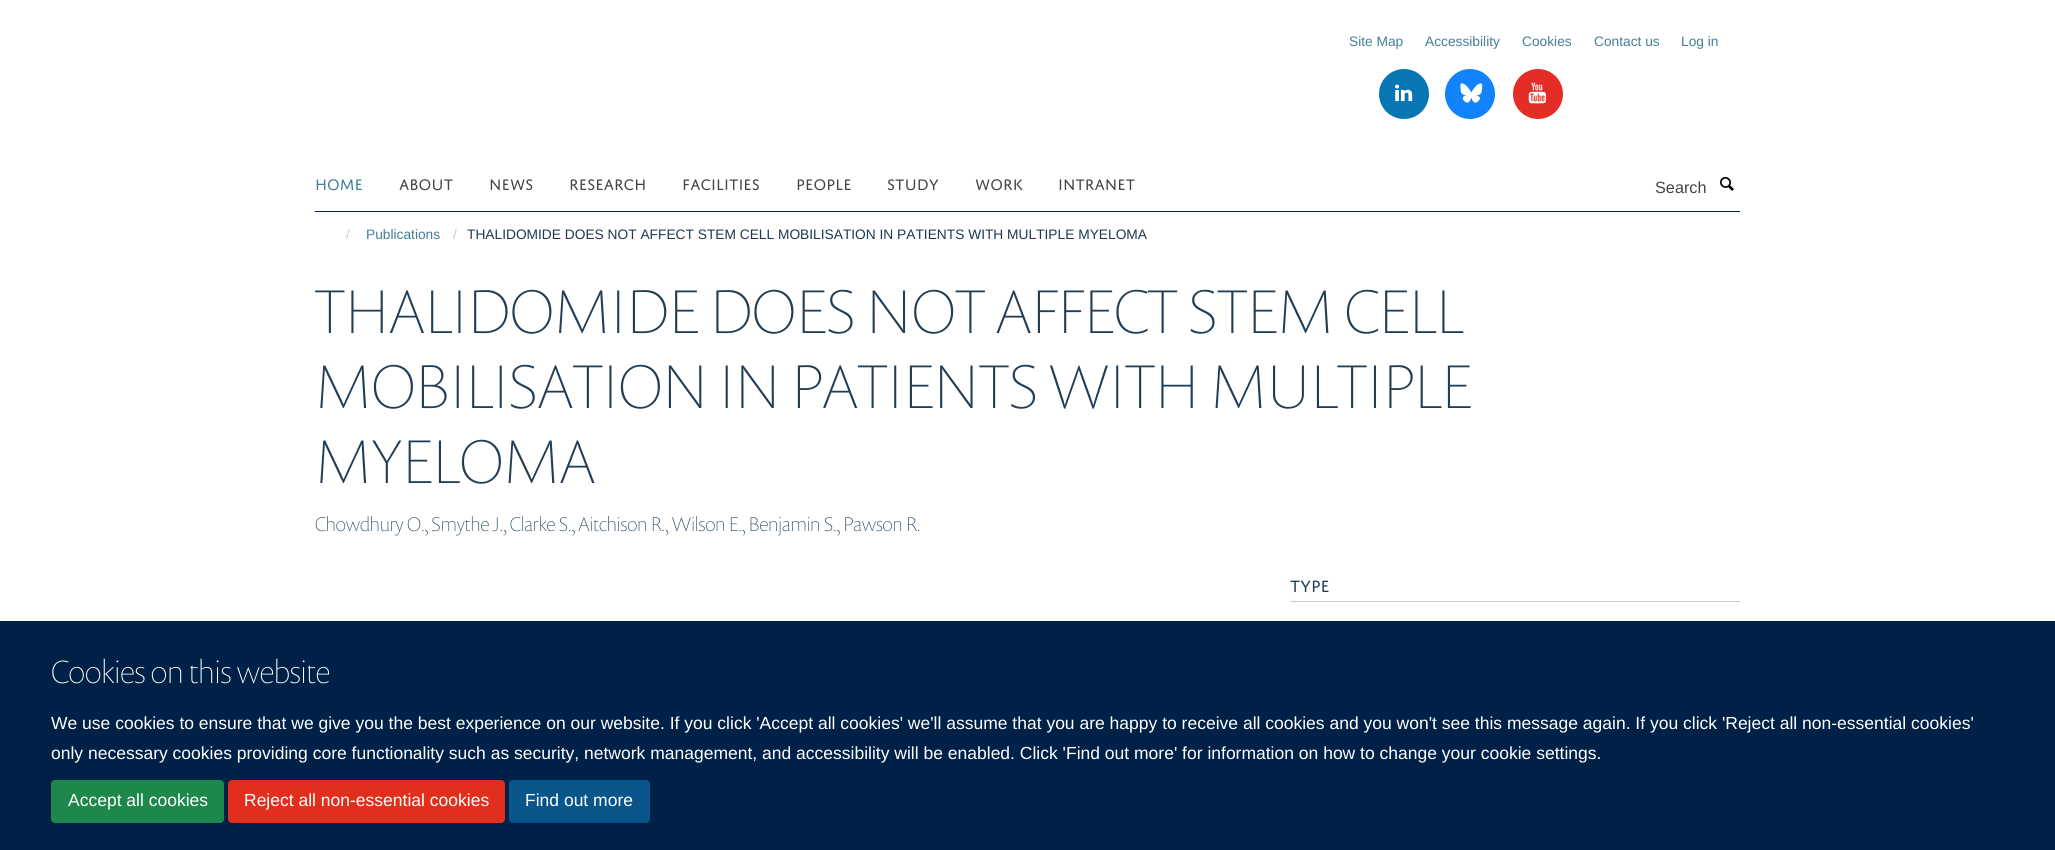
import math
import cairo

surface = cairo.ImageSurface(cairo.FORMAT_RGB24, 2055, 850)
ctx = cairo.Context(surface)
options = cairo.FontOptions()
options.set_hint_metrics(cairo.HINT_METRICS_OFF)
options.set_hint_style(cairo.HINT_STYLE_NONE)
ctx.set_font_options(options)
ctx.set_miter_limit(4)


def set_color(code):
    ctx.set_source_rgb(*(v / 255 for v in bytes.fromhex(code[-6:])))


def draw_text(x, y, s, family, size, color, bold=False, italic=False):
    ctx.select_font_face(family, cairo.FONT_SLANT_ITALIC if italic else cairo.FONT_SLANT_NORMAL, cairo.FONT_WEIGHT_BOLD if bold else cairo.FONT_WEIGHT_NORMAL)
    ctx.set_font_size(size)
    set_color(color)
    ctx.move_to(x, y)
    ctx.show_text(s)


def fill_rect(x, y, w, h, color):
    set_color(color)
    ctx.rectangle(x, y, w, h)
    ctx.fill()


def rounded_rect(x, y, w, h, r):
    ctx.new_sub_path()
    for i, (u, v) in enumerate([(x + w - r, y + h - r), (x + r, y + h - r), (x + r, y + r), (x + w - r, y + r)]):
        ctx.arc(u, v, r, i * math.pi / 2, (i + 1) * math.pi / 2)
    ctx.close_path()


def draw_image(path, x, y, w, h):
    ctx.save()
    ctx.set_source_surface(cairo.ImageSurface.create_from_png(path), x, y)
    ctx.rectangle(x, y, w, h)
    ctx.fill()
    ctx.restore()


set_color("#ffffff")
ctx.paint()
draw_text(1349, 46, "Site Map", "Liberation Sans", 13.75, "#437e96")
draw_text(1425, 46, "Accessibility", "Liberation Sans", 13.75, "#437e96")
draw_text(1522, 46, "Cookies", "Liberation Sans", 13.75, "#437e96")
draw_text(1594, 46, "Contact us", "Liberation Sans", 13.75, "#437e96")
draw_text(1681, 46, "Log in", "Liberation Sans", 13.75, "#437e96")
set_color("#0976b4")
ctx.new_path()
ctx.arc(1404, 94, 25, 0, 2 * math.pi)
ctx.fill()
draw_image("assets/img1.png", 1395, 84, 18, 18)
set_color("#1183fc")
ctx.arc(1470, 94, 25, 0, 2 * math.pi)
ctx.fill()
draw_image("assets/img2.png", 1460, 83, 23, 20)
set_color("#e52d27")
ctx.arc(1538, 94, 25, 0, 2 * math.pi)
ctx.fill()
draw_image("assets/img3.png", 1528, 82, 18, 22)
fill_rect(315, 211, 1425, 1, "#002147")
draw_text(315, 190, "HOME", "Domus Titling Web", 16.25, "#437e96")
draw_text(399, 190, "ABOUT", "Domus Titling Web", 16.25, "#444444")
draw_text(489, 190, "NEWS", "Domus Titling Web", 16.25, "#444444")
draw_text(569, 190, "RESEARCH", "Domus Titling Web", 16.25, "#444444")
draw_text(682, 190, "FACILITIES", "Domus Titling Web", 16.25, "#444444")
draw_text(796, 190, "PEOPLE", "Domus Titling Web", 16.25, "#444444")
draw_text(887, 190, "STUDY", "Domus Titling Web", 16.25, "#444444")
draw_text(975, 190, "WORK", "Domus Titling Web", 16.25, "#444444")
draw_text(1058, 190, "INTRANET", "Domus Titling Web", 16.25, "#444444")
draw_text(1655, 193, "Search", "Liberation Sans", 16.25, "#444444")
draw_image("assets/img4.png", 1720, 176, 14, 15)
draw_text(346, 239, "/", "Liberation Sans", 13.75, "#cccccc")
draw_text(366, 239, "Publications", "Liberation Sans", 13.75, "#437e96")
draw_text(453, 239, "/", "Liberation Sans", 13.75, "#cccccc")
draw_text(467, 239, "THALIDOMIDE DOES NOT AFFECT STEM CELL MOBILISATION IN PATIENTS WITH MULTIPLE MYELOMA", "Liberation Sans", 13.75, "#1d3850")
draw_text(315, 333, "THALIDOMIDE DOES NOT AFFECT STEM CELL", "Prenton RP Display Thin", 62.5, "#203e58")
draw_text(315, 408, "MOBILISATION IN PATIENTS WITH MULTIPLE", "Prenton RP Display Thin", 62.5, "#203e58")
draw_text(315, 483, "MYELOMA", "Prenton RP Display Thin", 62.5, "#203e58")
draw_text(315, 531, "Chowdhury O., Smythe J., Clarke S., Aitchison R., Wilson E., Benjamin S., Pawson R.", "Prenton RP Display Thin", 20, "#203e58")
fill_rect(1290, 601, 450, 1, "#c6cacf")
draw_text(1290, 592, "TYPE", "Domus Titling Web", 17.5, "#203e58")
fill_rect(0, 621, 2055, 229, "#002147")
draw_text(51, 683, "Cookies on this website", "Prenton RP Display Thin", 32.5, "#ffffff")
draw_text(51, 729, "We use cookies to ensure that we give you the best experience on our website. If you click 'Accept all cookies' we'll assume that you are happy to receive all cookies and you won't see this message again. If you click 'Reject all non-essential cookies'", "Liberation Sans", 17.5, "#ffffff")
draw_text(51, 759, "only necessary cookies providing core functionality such as security, network management, and accessibility will be enabled. Click 'Find out more' for information on how to change your cookie settings.", "Liberation Sans", 17.5, "#ffffff")
set_color("#1e874b")
rounded_rect(51.5, 780.5, 172, 42, 3.5)
ctx.fill_preserve()
ctx.set_line_width(1)
ctx.stroke()
draw_text(68, 806, "Accept all cookies", "Liberation Sans", 17.5, "#ffffff")
set_color("#e22e1c")
rounded_rect(228.5, 780.5, 276, 42, 3.5)
ctx.fill_preserve()
ctx.stroke()
draw_text(244, 806, "Reject all non-essential cookies", "Liberation Sans", 17.5, "#ffffff")
set_color("#085589")
rounded_rect(509.5, 780.5, 140, 42, 3.5)
ctx.fill_preserve()
ctx.stroke()
draw_text(525, 806, "Find out more", "Liberation Sans", 17.5, "#ffffff")
surface.write_to_png("output.png")
